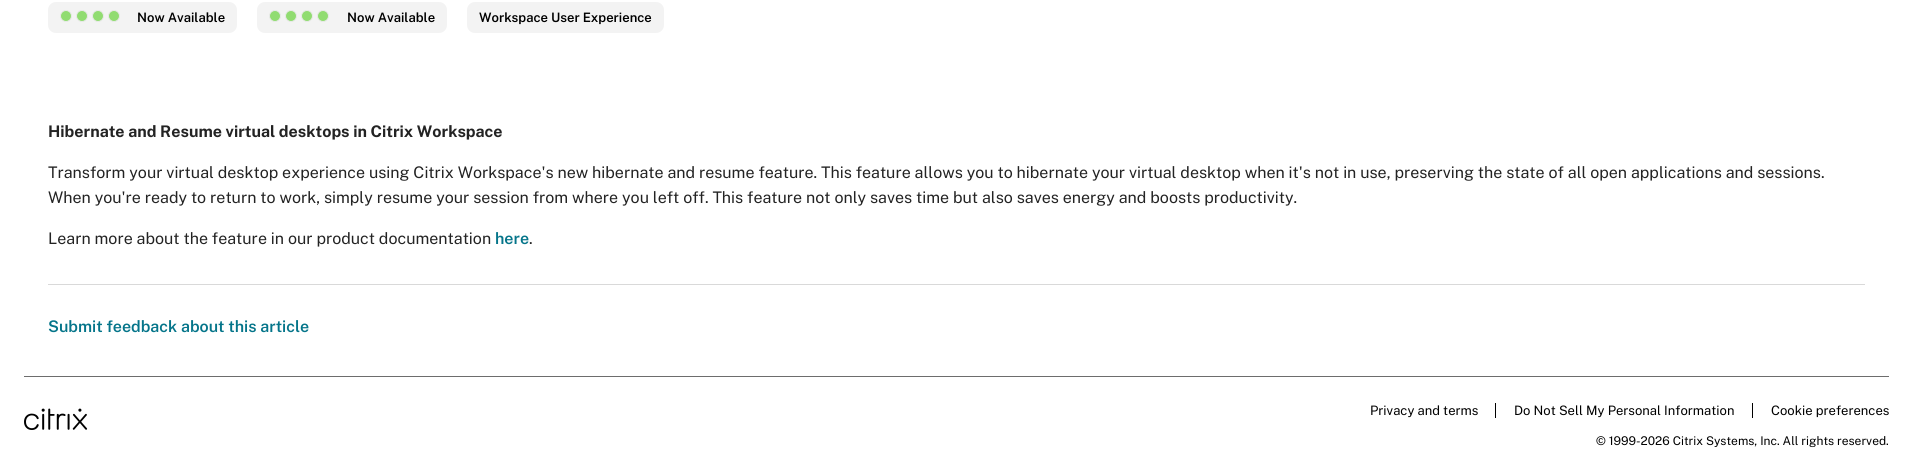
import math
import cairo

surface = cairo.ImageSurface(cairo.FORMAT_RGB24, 1913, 464)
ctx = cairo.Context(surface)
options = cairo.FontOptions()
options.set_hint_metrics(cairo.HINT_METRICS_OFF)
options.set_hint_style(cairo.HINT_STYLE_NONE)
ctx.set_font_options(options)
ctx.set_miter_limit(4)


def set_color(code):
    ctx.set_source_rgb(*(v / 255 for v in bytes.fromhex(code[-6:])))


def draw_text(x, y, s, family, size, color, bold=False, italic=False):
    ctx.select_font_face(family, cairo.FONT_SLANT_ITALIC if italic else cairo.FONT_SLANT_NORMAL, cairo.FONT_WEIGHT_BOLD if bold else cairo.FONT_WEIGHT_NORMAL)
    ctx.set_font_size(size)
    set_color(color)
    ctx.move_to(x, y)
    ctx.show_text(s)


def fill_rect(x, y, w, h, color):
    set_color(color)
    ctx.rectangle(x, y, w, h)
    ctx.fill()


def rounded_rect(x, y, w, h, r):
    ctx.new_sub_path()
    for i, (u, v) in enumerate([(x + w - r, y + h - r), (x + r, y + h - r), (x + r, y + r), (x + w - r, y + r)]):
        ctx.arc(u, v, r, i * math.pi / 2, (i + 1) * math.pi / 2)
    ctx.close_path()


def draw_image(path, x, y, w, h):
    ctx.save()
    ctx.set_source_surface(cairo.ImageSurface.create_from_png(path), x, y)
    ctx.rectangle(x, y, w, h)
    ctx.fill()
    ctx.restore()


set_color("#ffffff")
ctx.paint()
set_color("#f3f3f3")
rounded_rect(48, 2, 189, 31, 8)
ctx.fill()
set_color("#91dc71")
ctx.arc(66, 16, 5.5, 0, 2 * math.pi)
ctx.fill_preserve()
set_color("#e9e9e9")
ctx.set_line_width(1)
ctx.stroke()
set_color("#91dc71")
ctx.arc(82, 16, 5.5, 0, 2 * math.pi)
ctx.fill_preserve()
set_color("#e9e9e9")
ctx.stroke()
set_color("#91dc71")
ctx.arc(98, 16, 5.5, 0, 2 * math.pi)
ctx.fill_preserve()
set_color("#e9e9e9")
ctx.stroke()
set_color("#91dc71")
ctx.arc(114, 16, 5.5, 0, 2 * math.pi)
ctx.fill_preserve()
set_color("#e9e9e9")
ctx.stroke()
draw_text(137, 22, "Now Available", "Public Sans SemiBold", 13, "#000000")
set_color("#f3f3f3")
rounded_rect(257, 2, 190, 31, 8)
ctx.fill()
set_color("#91dc71")
ctx.arc(275, 16, 5.5, 0, 2 * math.pi)
ctx.fill_preserve()
set_color("#e9e9e9")
ctx.stroke()
set_color("#91dc71")
ctx.arc(291, 16, 5.5, 0, 2 * math.pi)
ctx.fill_preserve()
set_color("#e9e9e9")
ctx.stroke()
set_color("#91dc71")
ctx.arc(307, 16, 5.5, 0, 2 * math.pi)
ctx.fill_preserve()
set_color("#e9e9e9")
ctx.stroke()
set_color("#91dc71")
ctx.arc(323, 16, 5.5, 0, 2 * math.pi)
ctx.fill_preserve()
set_color("#e9e9e9")
ctx.stroke()
draw_text(347, 22, "Now Available", "Public Sans SemiBold", 13, "#000000")
set_color("#f3f3f3")
rounded_rect(467, 2, 197, 31, 8)
ctx.fill()
draw_text(479, 22, "Workspace User Experience", "Public Sans SemiBold", 13, "#000000")
draw_text(48, 137, "Hibernate and Resume virtual desktops in Citrix Workspace", "Public Sans", 16, "#232323", bold=True)
draw_text(48, 178, "Transform your virtual desktop experience using Citrix Workspace's new hibernate and resume feature. This feature allows you to hibernate your virtual desktop when it's not in use, preserving the state of all open applications and sessions.", "Public Sans", 16, "#232323")
draw_text(48, 203, "When you're ready to return to work, simply resume your session from where you left off. This feature not only saves time but also saves energy and boosts productivity.", "Public Sans", 16, "#232323")
draw_text(48, 244, "Learn more about the feature in our product documentation", "Public Sans", 16, "#232323")
draw_text(495, 244, "here", "Public Sans SemiBold", 16, "#05758a")
draw_text(529, 244, ".", "Public Sans", 16, "#232323")
fill_rect(48, 284, 1817, 1, "#d9d9d9")
draw_text(48, 332, "Submit feedback about this article", "Public Sans SemiBold", 16, "#05758a")
fill_rect(24, 376, 1865, 1, "#6d6d6d")
draw_image("assets/img1.png", 24, 408, 64, 22)
draw_text(1370, 415, "Privacy and terms", "Public Sans", 13, "#000000")
fill_rect(1495, 403, 1, 15, "#000000")
draw_text(1514, 415, "Do Not Sell My Personal Information", "Public Sans", 13, "#000000")
fill_rect(1752, 403, 1, 15, "#000000")
draw_text(1771, 415, "Cookie preferences", "Public Sans", 13, "#000000")
draw_text(1596, 445, "© 1999-2026 Citrix Systems, Inc. All rights reserved.", "Public Sans", 12, "#000000")
surface.write_to_png("output.png")
